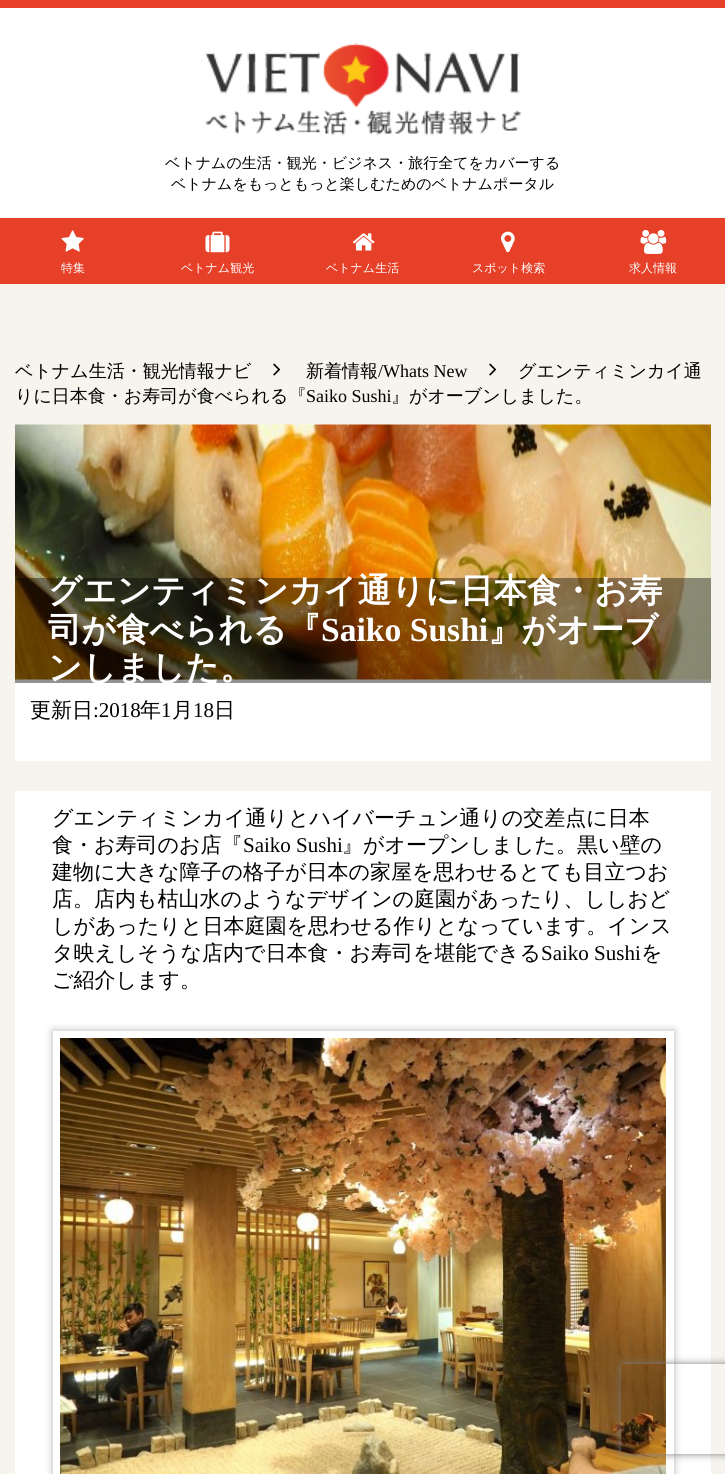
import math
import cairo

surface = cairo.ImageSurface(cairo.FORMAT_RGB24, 725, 1474)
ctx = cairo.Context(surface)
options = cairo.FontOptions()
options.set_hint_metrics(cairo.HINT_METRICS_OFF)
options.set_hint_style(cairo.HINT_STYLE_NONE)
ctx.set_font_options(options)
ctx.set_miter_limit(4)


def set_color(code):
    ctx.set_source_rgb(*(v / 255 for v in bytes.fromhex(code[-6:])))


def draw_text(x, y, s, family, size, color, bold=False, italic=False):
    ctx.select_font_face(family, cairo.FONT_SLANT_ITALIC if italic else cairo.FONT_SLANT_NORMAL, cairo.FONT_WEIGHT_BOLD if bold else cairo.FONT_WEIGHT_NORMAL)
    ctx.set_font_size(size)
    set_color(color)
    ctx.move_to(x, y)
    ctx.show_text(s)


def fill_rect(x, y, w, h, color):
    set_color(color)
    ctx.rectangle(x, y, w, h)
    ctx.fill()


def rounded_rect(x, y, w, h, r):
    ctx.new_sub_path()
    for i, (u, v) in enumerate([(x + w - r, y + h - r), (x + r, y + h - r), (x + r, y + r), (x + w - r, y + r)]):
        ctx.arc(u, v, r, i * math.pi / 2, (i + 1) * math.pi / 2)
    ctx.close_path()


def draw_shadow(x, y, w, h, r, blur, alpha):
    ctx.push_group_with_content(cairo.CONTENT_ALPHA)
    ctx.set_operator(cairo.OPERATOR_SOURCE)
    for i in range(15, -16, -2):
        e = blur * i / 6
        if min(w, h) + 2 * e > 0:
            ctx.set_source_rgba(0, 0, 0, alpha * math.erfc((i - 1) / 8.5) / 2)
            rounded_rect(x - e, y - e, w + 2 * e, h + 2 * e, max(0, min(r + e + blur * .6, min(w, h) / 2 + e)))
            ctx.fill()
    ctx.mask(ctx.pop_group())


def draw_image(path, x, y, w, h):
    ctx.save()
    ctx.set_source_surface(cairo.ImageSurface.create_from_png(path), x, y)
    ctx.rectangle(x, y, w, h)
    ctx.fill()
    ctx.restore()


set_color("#f6f4ed")
ctx.paint()
fill_rect(0, 8, 725, 210, "#ffffff")
fill_rect(0, 0, 725, 8, "#e64028")
draw_image("assets/img1.png", 205, 43, 316, 93)
draw_text(165, 168, "ベトナムの生活・観光・ビジネス・旅行全てをカバーする", "WenQuanYi Zen Hei Medium", 15, "#000000")
draw_text(171, 189, "ベトナムをもっともっと楽しむためのベトナムポータル", "WenQuanYi Zen Hei Medium", 15, "#000000")
fill_rect(0, 218, 725, 66, "#e64028")
draw_image("assets/img2.png", 61, 230, 23, 22)
draw_text(61, 272, "特集", "WenQuanYi Zen Hei Medium", 12, "#ffffff")
draw_image("assets/img3.png", 205, 231, 25, 22)
draw_text(181, 272, "ベトナム観光", "WenQuanYi Zen Hei Medium", 12, "#ffffff")
draw_image("assets/img4.png", 352, 233, 23, 18)
draw_text(326, 272, "ベトナム生活", "WenQuanYi Zen Hei Medium", 12, "#ffffff")
draw_image("assets/img5.png", 501, 231, 14, 22)
draw_text(472, 272, "スポット検索", "WenQuanYi Zen Hei Medium", 12, "#ffffff")
draw_image("assets/img6.png", 640, 229, 27, 25)
draw_text(629, 272, "求人情報", "WenQuanYi Zen Hei Medium", 12, "#ffffff")
draw_text(15, 377, "ベトナム生活・観光情報ナビ", "WenQuanYi Zen Hei Medium", 18, "#000000")
draw_image("assets/img7.png", 273, 363, 8, 13)
draw_text(306, 377, "新着情報", "WenQuanYi Zen Hei Medium", 18, "#000000")
draw_text(378, 377, "/Whats New", "Liberation Serif", 18, "#000000")
draw_image("assets/img7.png", 489, 363, 8, 13)
draw_text(518, 377, "グエンティミンカイ通", "WenQuanYi Zen Hei Medium", 18, "#000000")
draw_text(15, 402, "りに日本食・お寿司が食べられる『", "WenQuanYi Zen Hei Medium", 18, "#000000")
draw_text(306, 402, "Saiko Sushi", "Liberation Serif", 18, "#000000")
draw_text(391, 402, "』がオーブンしました。", "WenQuanYi Zen Hei Medium", 18, "#000000")
draw_image("assets/img8.png", 15, 424, 696, 256)
ctx.set_source_rgba(0, 0, 0, 0.4)
ctx.rectangle(15, 578, 696, 105)
ctx.fill()
draw_text(48, 602, "グエンティミンカイ通りに日本食・お寿", "WenQuanYi Zen Hei", 33.6, "#ffffff", bold=True)
draw_text(48, 641, "司が食べられる『", "WenQuanYi Zen Hei", 33.6, "#ffffff", bold=True)
draw_text(321, 641, "Saiko Sushi", "Liberation Serif", 33.6, "#ffffff", bold=True)
draw_text(488, 641, "』がオーブ", "WenQuanYi Zen Hei", 33.6, "#ffffff", bold=True)
fill_rect(15, 683, 696, 78, "#ffffff")
draw_text(48, 679, "ンしました。", "WenQuanYi Zen Hei", 33.6, "#ffffff", bold=True)
draw_text(30, 717, "更新日", "WenQuanYi Zen Hei Medium", 21, "#000000")
draw_text(93, 717, ":2018", "Liberation Serif", 21, "#000000")
draw_text(140, 717, "年", "WenQuanYi Zen Hei Medium", 21, "#000000")
draw_text(161, 717, "1", "Liberation Serif", 21, "#000000")
draw_text(172, 717, "月", "WenQuanYi Zen Hei Medium", 21, "#000000")
draw_text(193, 717, "18", "Liberation Serif", 21, "#000000")
draw_text(214, 717, "日", "WenQuanYi Zen Hei Medium", 21, "#000000")
fill_rect(15, 791, 696, 683, "#ffffff")
draw_text(52, 825, "グエンティミンカイ通りとハイバーチュン通りの交差点に日本", "WenQuanYi Zen Hei Medium", 21, "#000000")
draw_text(52, 852, "食・お寿司のお店『", "WenQuanYi Zen Hei Medium", 21, "#000000")
draw_text(243, 852, "Saiko Sushi", "Liberation Serif", 21, "#000000")
draw_text(342, 852, "』がオープンしました。黒い壁の", "WenQuanYi Zen Hei Medium", 21, "#000000")
draw_text(52, 879, "建物に大きな障子の格子が日本の家屋を思わせるとても目立つお", "WenQuanYi Zen Hei Medium", 21, "#000000")
draw_text(52, 906, "店。店内も枯山水のようなデザインの庭園があったり、ししおど", "WenQuanYi Zen Hei Medium", 21, "#000000")
draw_text(52, 933, "しがあったりと日本庭園を思わせる作りとなっています。インス", "WenQuanYi Zen Hei Medium", 21, "#000000")
draw_text(52, 960, "タ映えしそうな店内で日本食・お寿司を堪能できる", "WenQuanYi Zen Hei Medium", 21, "#000000")
draw_text(541, 960, "Saiko Sushi", "Liberation Serif", 21, "#000000")
draw_text(641, 960, "を", "WenQuanYi Zen Hei Medium", 21, "#000000")
draw_text(52, 987, "ご紹介します。", "WenQuanYi Zen Hei Medium", 21, "#000000")
ctx.save()
ctx.set_fill_rule(cairo.FILL_RULE_EVEN_ODD)
ctx.new_path()
ctx.move_to(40, 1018)
ctx.line_to(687, 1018)
ctx.line_to(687, 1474)
ctx.line_to(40, 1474)
ctx.close_path()
ctx.move_to(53, 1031)
ctx.line_to(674, 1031)
ctx.line_to(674, 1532)
ctx.line_to(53, 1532)
ctx.close_path()
ctx.clip()
set_color("#000000")
draw_shadow(53, 1031, 621, 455, 0, 4, 0.3)
ctx.restore()
draw_image("assets/img9.png", 60, 1038, 606, 436)
ctx.save()
ctx.set_fill_rule(cairo.FILL_RULE_EVEN_ODD)
ctx.new_path()
ctx.move_to(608, 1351)
ctx.line_to(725, 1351)
ctx.line_to(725, 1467)
ctx.line_to(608, 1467)
ctx.close_path()
ctx.move_to(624, 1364)
ctx.line_to(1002, 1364)
ctx.curve_to(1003.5, 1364, 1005, 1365.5, 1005, 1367)
ctx.line_to(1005, 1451)
ctx.curve_to(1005, 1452.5, 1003.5, 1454, 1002, 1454)
ctx.line_to(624, 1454)
ctx.curve_to(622.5, 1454, 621, 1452.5, 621, 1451)
ctx.line_to(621, 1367)
ctx.curve_to(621, 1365.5, 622.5, 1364, 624, 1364)
ctx.close_path()
ctx.clip()
set_color("#808080")
draw_shadow(621, 1364, 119, 90, 3, 4, 1)
ctx.restore()
surface.write_to_png("output.png")
